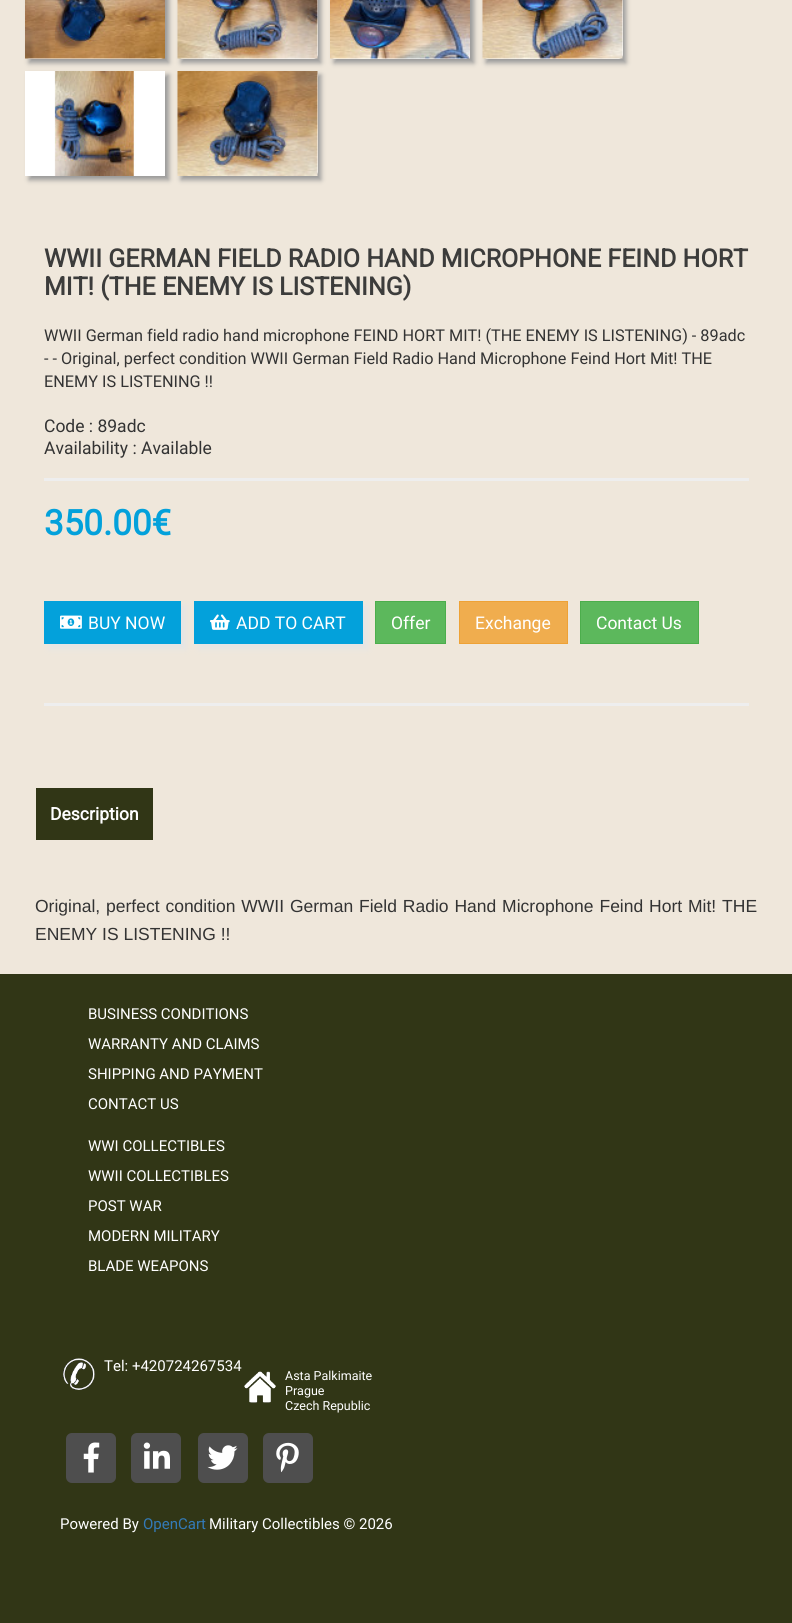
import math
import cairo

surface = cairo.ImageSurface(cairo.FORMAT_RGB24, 792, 1623)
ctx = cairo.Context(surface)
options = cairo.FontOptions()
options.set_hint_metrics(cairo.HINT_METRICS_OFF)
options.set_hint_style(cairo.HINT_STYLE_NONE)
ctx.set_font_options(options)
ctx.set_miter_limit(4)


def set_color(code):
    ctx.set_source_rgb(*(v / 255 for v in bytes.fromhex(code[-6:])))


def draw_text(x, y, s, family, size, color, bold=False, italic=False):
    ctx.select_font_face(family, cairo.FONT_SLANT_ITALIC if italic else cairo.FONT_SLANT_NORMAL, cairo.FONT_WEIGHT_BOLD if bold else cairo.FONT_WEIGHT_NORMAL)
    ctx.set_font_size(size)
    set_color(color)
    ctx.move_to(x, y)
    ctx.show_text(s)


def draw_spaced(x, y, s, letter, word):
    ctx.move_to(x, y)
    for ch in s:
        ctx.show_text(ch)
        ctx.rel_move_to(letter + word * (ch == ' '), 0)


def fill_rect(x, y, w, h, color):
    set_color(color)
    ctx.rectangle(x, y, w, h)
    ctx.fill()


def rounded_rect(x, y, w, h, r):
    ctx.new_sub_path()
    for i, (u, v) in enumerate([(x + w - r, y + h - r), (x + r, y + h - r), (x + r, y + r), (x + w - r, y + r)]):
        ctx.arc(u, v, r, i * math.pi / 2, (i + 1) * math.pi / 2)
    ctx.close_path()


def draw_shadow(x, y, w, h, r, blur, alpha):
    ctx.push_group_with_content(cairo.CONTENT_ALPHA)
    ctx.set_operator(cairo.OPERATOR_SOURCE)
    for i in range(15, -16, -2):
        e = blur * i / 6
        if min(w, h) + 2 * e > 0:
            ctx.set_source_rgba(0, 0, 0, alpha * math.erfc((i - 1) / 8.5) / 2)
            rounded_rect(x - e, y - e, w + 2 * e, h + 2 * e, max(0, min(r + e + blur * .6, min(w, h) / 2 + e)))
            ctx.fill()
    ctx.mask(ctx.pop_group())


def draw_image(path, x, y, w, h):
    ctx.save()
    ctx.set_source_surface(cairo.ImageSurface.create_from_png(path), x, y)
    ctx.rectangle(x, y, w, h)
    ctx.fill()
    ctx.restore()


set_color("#efe7db")
ctx.paint()
set_color("#999999")
draw_shadow(29, -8, 140, 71, 0, 2.5, 1)
set_color("#ffffff")
rounded_rect(25, -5, 140, 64, 5)
ctx.fill()
draw_image("assets/img1.png", 25, 0, 140, 59)
set_color("#999999")
draw_shadow(181, -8, 140, 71, 0, 2.5, 1)
set_color("#ffffff")
rounded_rect(178, -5, 140, 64, 5)
ctx.fill()
draw_image("assets/img2.png", 177, 0, 141, 59)
set_color("#999999")
draw_shadow(334, -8, 140, 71, 0, 2.5, 1)
set_color("#ffffff")
rounded_rect(330, -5, 140, 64, 5)
ctx.fill()
draw_image("assets/img3.png", 330, 0, 140, 59)
set_color("#999999")
draw_shadow(486, -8, 140, 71, 0, 2.5, 1)
set_color("#ffffff")
rounded_rect(483, -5, 140, 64, 5)
ctx.fill()
draw_image("assets/img4.png", 482, 0, 141, 59)
set_color("#999999")
draw_shadow(29, 75, 140, 105, 0, 2.5, 1)
draw_image("assets/img5.png", 25, 71, 140, 105)
draw_shadow(181, 75, 140, 105, 0, 2.5, 1)
set_color("#ffffff")
rounded_rect(178, 71, 140, 105, 5)
ctx.fill()
draw_image("assets/img6.png", 177, 71, 141, 105)
draw_text(44, 267, "WWII GERMAN FIELD RADIO HAND MICROPHONE FEIND HORT", "Roboto", 25, "#3c3c3b", bold=True)
draw_text(44, 295, "MIT! (THE ENEMY IS LISTENING)", "Roboto", 25, "#3c3c3b", bold=True)
draw_text(44, 341, "WWII German field radio hand microphone FEIND HORT MIT! (THE ENEMY IS LISTENING) - 89adc", "Roboto", 16.25, "#333333")
draw_text(44, 364, "- - Original, perfect condition WWII German Field Radio Hand Microphone Feind Hort Mit! THE", "Roboto", 16.25, "#333333")
draw_text(44, 387, "ENEMY IS LISTENING !!", "Roboto", 16.25, "#333333")
draw_text(44, 432, "Code : 89adc", "Roboto", 17.5, "#333333")
draw_text(44, 454, "Availability : Available", "Roboto", 17.5, "#333333")
fill_rect(44, 478, 705, 3, "#eeeeee")
draw_text(44, 535, "350.00€", "Roboto", 35, "#03a1db", bold=True)
set_color("#e5e5e5")
draw_shadow(49, 606, 137, 43, 0, 3, 1)
fill_rect(44, 601, 137, 43, "#03a1db")
draw_image("assets/img7.png", 60, 615, 22, 14)
draw_text(88, 629, "BUY NOW", "Roboto", 17.5, "#ffffff")
set_color("#e5e5e5")
draw_shadow(199, 606, 169, 43, 0, 3, 1)
fill_rect(194, 601, 169, 43, "#03a1db")
draw_image("assets/img8.png", 210, 614, 20, 16)
draw_text(236, 629, "ADD TO CART", "Roboto", 17.5, "#ffffff")
set_color("#5cb85c")
ctx.rectangle(375.5, 601.5, 70, 42)
ctx.fill_preserve()
set_color("#4cae4c")
ctx.set_line_width(1)
ctx.stroke()
draw_text(391, 629, "Offer", "Roboto", 17.5, "#ffffff")
set_color("#f0ad4e")
ctx.rectangle(459.5, 601.5, 108, 42)
ctx.fill_preserve()
set_color("#eea236")
ctx.stroke()
draw_text(475, 629, "Exchange", "Roboto", 17.5, "#ffffff")
set_color("#5cb85c")
ctx.rectangle(580.5, 601.5, 118, 42)
ctx.fill_preserve()
set_color("#4cae4c")
ctx.stroke()
draw_text(596, 629, "Contact Us", "Roboto", 17.5, "#ffffff")
fill_rect(44, 703, 705, 3, "#eeeeee")
fill_rect(36, 788, 117, 52, "#313616")
draw_text(50, 820, "Description", "Roboto", 17.5, "#ffffff", bold=True)
ctx.select_font_face("Liberation Sans")
set_color("#333333")
draw_spaced(35, 912, "Original, perfect condition WWII German Field Radio Hand Microphone Feind Hort Mit! THE", 0, 1)
draw_text(35, 940, "ENEMY IS LISTENING !!", "Liberation Sans", 17.5, "#333333")
fill_rect(0, 974, 792, 649, "#313616")
draw_text(88, 1019, "BUSINESS CONDITIONS", "Roboto", 15, "#ffffff")
draw_text(88, 1049, "WARRANTY AND CLAIMS", "Roboto", 15, "#ffffff")
draw_text(88, 1079, "SHIPPING AND PAYMENT", "Roboto", 15, "#ffffff")
draw_text(88, 1109, "CONTACT US", "Roboto", 15, "#ffffff")
draw_text(88, 1151, "WWI COLLECTIBLES", "Roboto", 15, "#ffffff")
draw_text(88, 1181, "WWII COLLECTIBLES", "Roboto", 15, "#ffffff")
draw_text(88, 1211, "POST WAR", "Roboto", 15, "#ffffff")
draw_text(88, 1241, "MODERN MILITARY", "Roboto", 15, "#ffffff")
draw_text(88, 1271, "BLADE WEAPONS", "Roboto", 15, "#ffffff")
draw_image("assets/img9.png", 63, 1358, 32, 32)
draw_text(104, 1371, "Tel: +420724267534", "Roboto", 15, "#ffffff")
draw_image("assets/img10.png", 244, 1371, 32, 32)
draw_text(285, 1380, "Asta Palkimaite", "Roboto", 12.5, "#ffffff")
draw_text(285, 1395, "Prague", "Roboto", 12.5, "#ffffff")
draw_text(285, 1410, "Czech Republic", "Roboto", 12.5, "#ffffff")
set_color("#4e4e4e")
rounded_rect(66, 1433, 50, 50, 6)
ctx.fill()
draw_image("assets/img11.png", 83, 1442, 17, 31)
rounded_rect(131, 1433, 50, 50, 6)
ctx.fill()
draw_image("assets/img12.png", 143, 1442, 27, 27)
rounded_rect(198, 1433, 50, 50, 6)
ctx.fill()
draw_image("assets/img13.png", 207, 1445, 31, 25)
rounded_rect(263, 1433, 50, 50, 6)
ctx.fill()
draw_image("assets/img14.png", 276, 1442, 23, 31)
draw_text(60, 1529, "Powered By", "Roboto", 15, "#ffffff")
draw_text(143, 1529, "OpenCart", "Roboto", 15, "#337ab7")
draw_text(209, 1529, "Military Collectibles © 2026", "Roboto", 15, "#ffffff")
surface.write_to_png("output.png")
